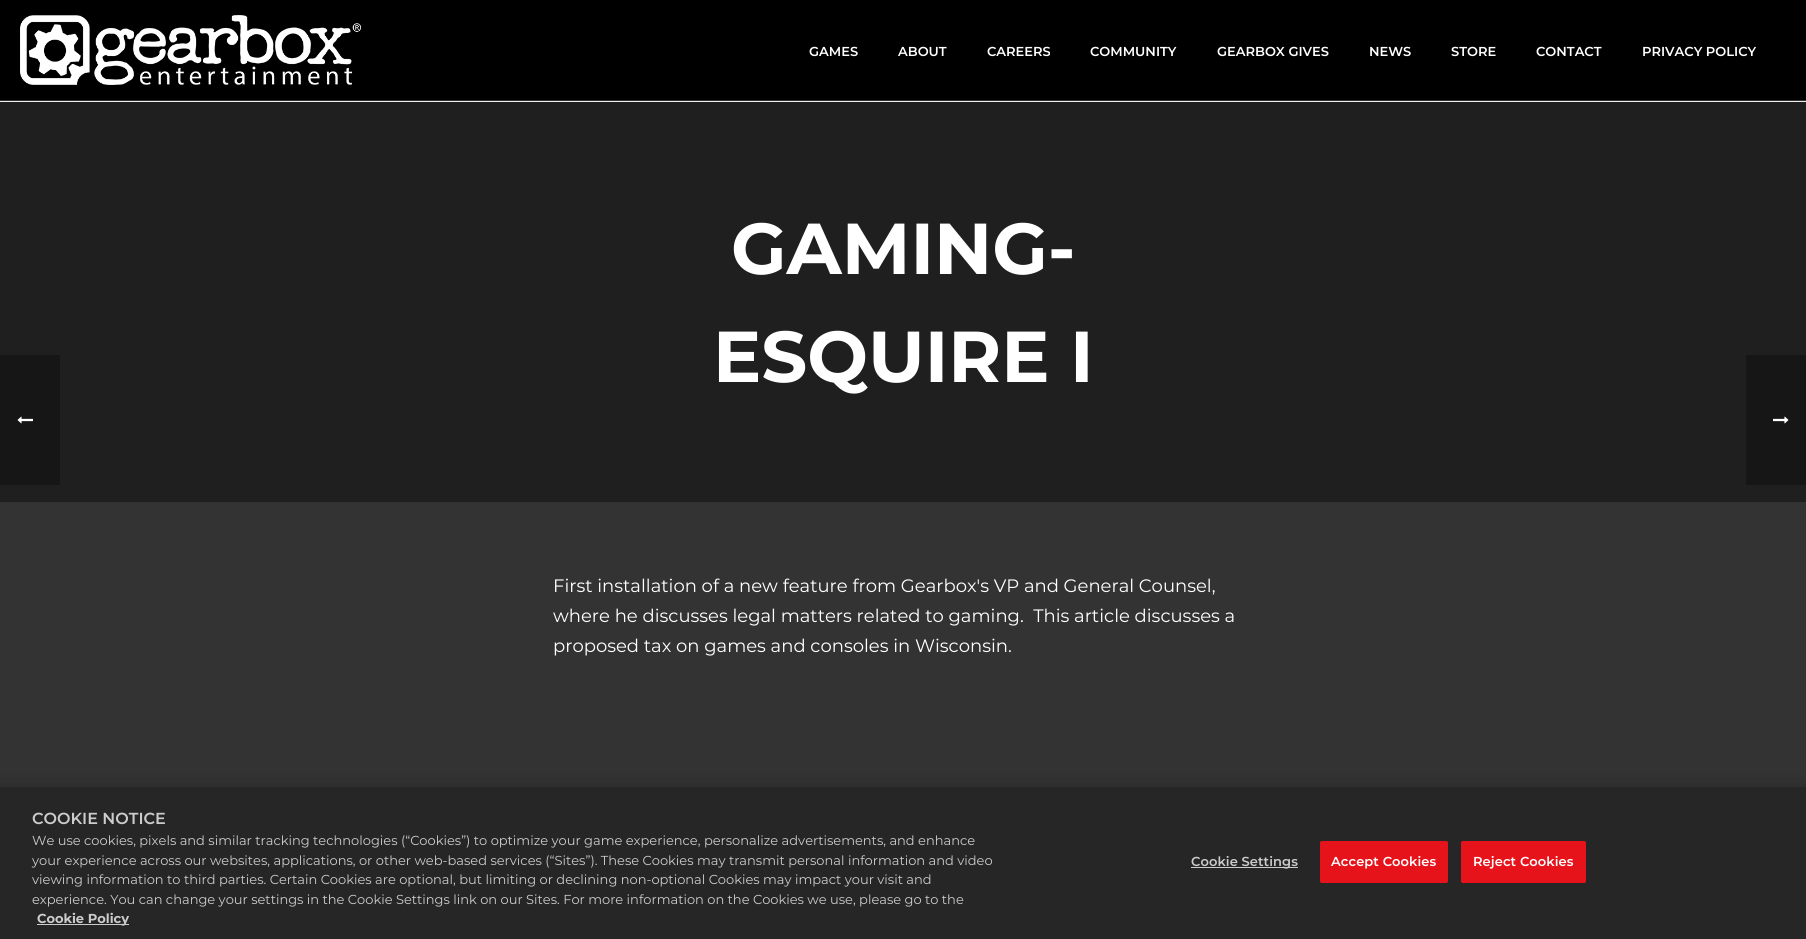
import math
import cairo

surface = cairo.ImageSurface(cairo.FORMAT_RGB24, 1806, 939)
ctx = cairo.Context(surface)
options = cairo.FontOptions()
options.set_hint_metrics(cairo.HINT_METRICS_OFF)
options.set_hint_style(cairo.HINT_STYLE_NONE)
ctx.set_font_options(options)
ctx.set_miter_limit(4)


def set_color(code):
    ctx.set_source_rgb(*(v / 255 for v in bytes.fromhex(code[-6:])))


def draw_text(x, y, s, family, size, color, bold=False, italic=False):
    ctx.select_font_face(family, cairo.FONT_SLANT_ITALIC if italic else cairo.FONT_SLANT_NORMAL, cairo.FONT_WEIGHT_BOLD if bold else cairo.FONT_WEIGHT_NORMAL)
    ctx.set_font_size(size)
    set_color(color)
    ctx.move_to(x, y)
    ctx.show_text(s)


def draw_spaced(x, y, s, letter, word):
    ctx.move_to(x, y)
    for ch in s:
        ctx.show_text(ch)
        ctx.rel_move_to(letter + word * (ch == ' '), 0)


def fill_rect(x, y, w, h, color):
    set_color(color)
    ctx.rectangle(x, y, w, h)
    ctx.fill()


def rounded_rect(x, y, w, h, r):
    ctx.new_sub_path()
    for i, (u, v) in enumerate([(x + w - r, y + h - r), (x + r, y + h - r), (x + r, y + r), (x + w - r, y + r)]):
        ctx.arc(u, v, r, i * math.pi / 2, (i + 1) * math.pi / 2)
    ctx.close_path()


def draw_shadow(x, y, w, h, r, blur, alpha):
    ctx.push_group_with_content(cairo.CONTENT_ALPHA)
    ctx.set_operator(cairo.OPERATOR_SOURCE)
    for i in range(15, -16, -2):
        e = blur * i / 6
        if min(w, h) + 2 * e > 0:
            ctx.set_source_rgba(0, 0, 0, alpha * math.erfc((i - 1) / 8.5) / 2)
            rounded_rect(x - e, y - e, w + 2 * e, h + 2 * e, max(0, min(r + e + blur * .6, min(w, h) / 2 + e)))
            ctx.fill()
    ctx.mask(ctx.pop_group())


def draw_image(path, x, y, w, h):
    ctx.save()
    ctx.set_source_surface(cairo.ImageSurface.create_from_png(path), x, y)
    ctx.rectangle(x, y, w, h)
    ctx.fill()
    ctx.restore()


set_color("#333333")
ctx.paint()
fill_rect(0, 102, 1806, 400, "#1f1f1f")
fill_rect(0, 355, 60, 130, "#161616")
draw_image("assets/img1.png", 17, 416, 16, 8)
fill_rect(0, 101, 1806, 1, "#ededed")
fill_rect(0, 0, 1806, 100, "#000000")
draw_image("assets/img2.png", 20, 15, 341, 70)
draw_text(809, 56, "GAMES", "Montserrat SemiBold", 13, "#ffffff")
draw_text(898, 56, "ABOUT", "Montserrat SemiBold", 13, "#ffffff")
draw_text(987, 56, "CAREERS", "Montserrat SemiBold", 13, "#ffffff")
draw_text(1090, 56, "COMMUNITY", "Montserrat SemiBold", 13, "#ffffff")
draw_text(1217, 56, "GEARBOX GIVES", "Montserrat SemiBold", 13, "#ffffff")
draw_text(1369, 56, "NEWS", "Montserrat SemiBold", 13, "#ffffff")
draw_text(1451, 56, "STORE", "Montserrat SemiBold", 13, "#ffffff")
draw_text(1536, 56, "CONTACT", "Montserrat SemiBold", 13, "#ffffff")
draw_text(1642, 56, "PRIVACY POLICY", "Montserrat SemiBold", 13, "#ffffff")
draw_text(731, 274, "GAMING-", "Montserrat", 72, "#ffffff", bold=True)
draw_text(713, 382, "ESQUIRE I", "Montserrat", 72, "#ffffff", bold=True)
draw_text(553, 592, "First installation of a new feature from Gearbox's VP and General Counsel,", "Montserrat", 18, "#ffffff")
draw_text(553, 622, "where he discusses legal matters related to gaming.  This article discusses a", "Montserrat", 18, "#ffffff")
draw_text(553, 652, "proposed tax on games and consoles in Wisconsin.", "Montserrat", 18, "#ffffff")
fill_rect(1746, 355, 60, 130, "#161616")
draw_image("assets/img3.png", 1773, 416, 16, 8)
set_color("#000000")
draw_shadow(0, 787, 1806, 152, 0, 9, 0.2)
fill_rect(0, 787, 1806, 152, "#262626")
draw_text(32, 824, "COOKIE NOTICE", "Montserrat SemiBold", 16, "#cccccc")
draw_text(32, 845, "We use cookies, pixels and similar tracking technologies (“Cookies”) to optimize your game experience, personalize advertisements, and enhance", "Montserrat", 13, "#cccccc")
draw_text(32, 865, "your experience across our websites, applications, or other web-based services (“Sites”). These Cookies may transmit personal information and video", "Montserrat", 13, "#cccccc")
draw_text(32, 884, "viewing information to third parties. Certain Cookies are optional, but limiting or declining non-optional Cookies may impact your visit and", "Montserrat", 13, "#cccccc")
draw_text(32, 904, "experience. You can change your settings in the Cookie Settings link on our Sites. For more information on the Cookies we use, please go to the", "Montserrat", 13, "#cccccc")
fill_rect(37, 924, 92, 1, "#cccccc")
draw_text(37, 923, "Cookie Policy", "Montserrat", 13, "#cccccc", bold=True)
fill_rect(1191, 867, 107, 1, "#cccccc")
ctx.select_font_face("Montserrat SemiBold")
draw_spaced(1191, 866, "Cookie Settings", 0.1, 0)
set_color("#e7131a")
rounded_rect(1320.5, 841.5, 127, 41, 1.5)
ctx.fill_preserve()
ctx.set_line_width(1)
ctx.stroke()
set_color("#ffffff")
draw_spaced(1331, 866, "Accept Cookies", 0.1, 0)
set_color("#e7131a")
rounded_rect(1461.5, 841.5, 124, 41, 1.5)
ctx.fill_preserve()
ctx.stroke()
set_color("#ffffff")
draw_spaced(1473, 866, "Reject Cookies", 0.1, 0)
surface.write_to_png("output.png")
